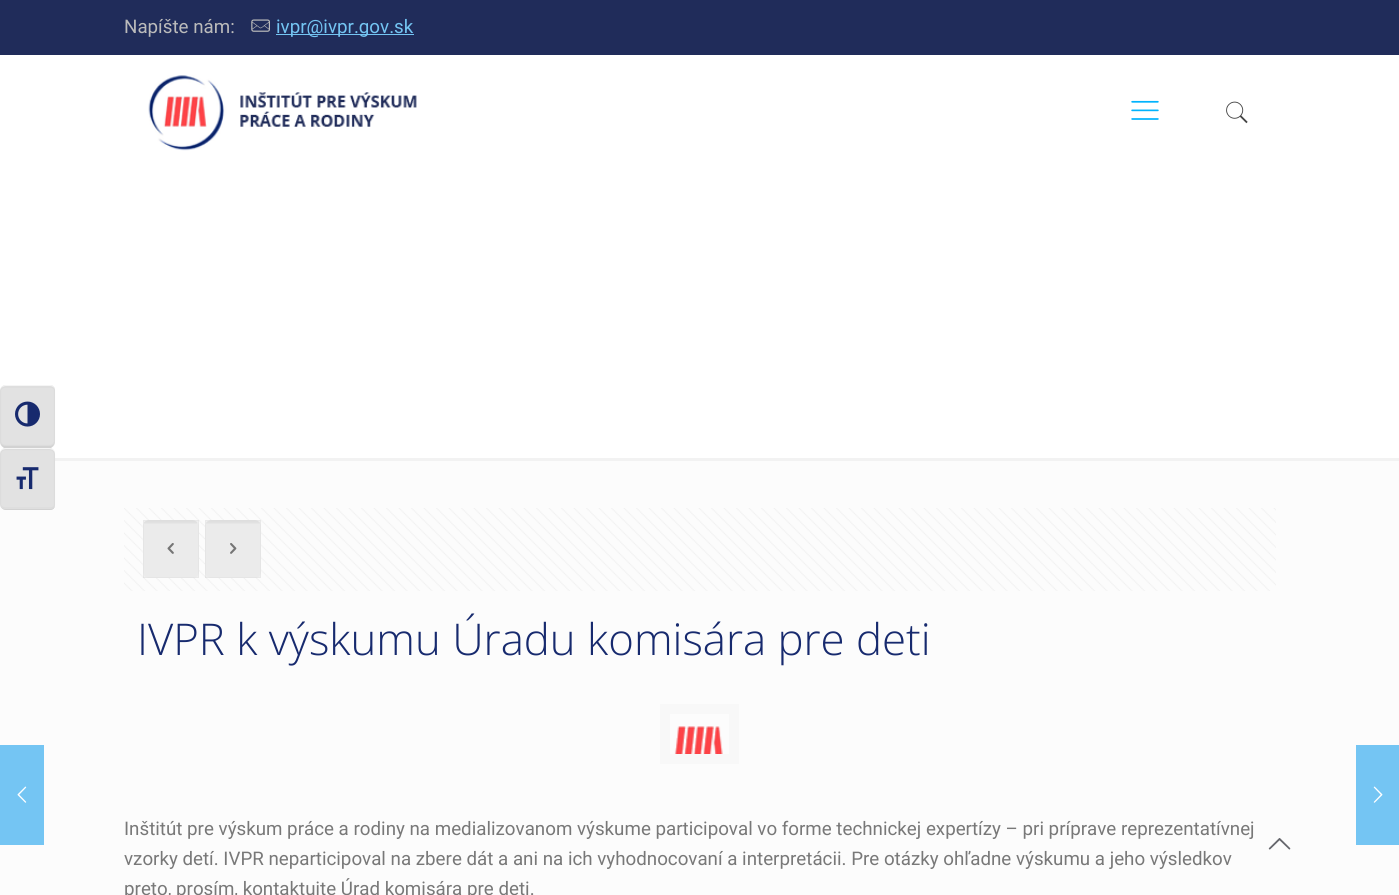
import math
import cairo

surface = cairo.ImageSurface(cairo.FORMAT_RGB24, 1399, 895)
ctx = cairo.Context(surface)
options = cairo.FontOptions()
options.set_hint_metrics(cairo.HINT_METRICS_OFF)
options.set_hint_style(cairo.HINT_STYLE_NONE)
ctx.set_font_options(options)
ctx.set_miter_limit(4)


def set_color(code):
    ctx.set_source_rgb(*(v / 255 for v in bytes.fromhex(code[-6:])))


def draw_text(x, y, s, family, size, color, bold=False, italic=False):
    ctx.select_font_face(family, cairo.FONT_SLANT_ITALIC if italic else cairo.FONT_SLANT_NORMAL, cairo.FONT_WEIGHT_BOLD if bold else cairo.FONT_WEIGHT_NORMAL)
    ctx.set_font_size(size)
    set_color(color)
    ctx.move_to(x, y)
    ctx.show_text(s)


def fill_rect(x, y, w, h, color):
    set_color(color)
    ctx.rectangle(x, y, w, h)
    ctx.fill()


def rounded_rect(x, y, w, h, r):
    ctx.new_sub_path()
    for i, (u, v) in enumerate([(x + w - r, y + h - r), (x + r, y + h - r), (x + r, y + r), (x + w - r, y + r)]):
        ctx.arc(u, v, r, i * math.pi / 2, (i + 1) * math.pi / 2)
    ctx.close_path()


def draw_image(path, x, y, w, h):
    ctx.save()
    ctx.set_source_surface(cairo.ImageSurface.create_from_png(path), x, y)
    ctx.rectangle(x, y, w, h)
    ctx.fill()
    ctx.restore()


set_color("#fcfcfc")
ctx.paint()
fill_rect(0, 55, 1399, 403, "#ffffff")
set_color("#e2e2e2")
ctx.new_path()
ctx.move_to(6, 385)
ctx.line_to(50, 385)
ctx.curve_to(53, 385, 55, 387, 55, 390)
ctx.line_to(55, 442)
ctx.curve_to(55, 445.5, 52.5, 448, 49, 448)
ctx.line_to(6, 448)
ctx.curve_to(2.5, 448, 0, 445.5, 0, 442)
ctx.line_to(0, 391)
ctx.curve_to(0, 387.5, 2.5, 385, 6, 385)
ctx.close_path()
ctx.fill()
ctx.new_path()
ctx.move_to(6, 387)
ctx.line_to(50, 387)
ctx.curve_to(52.5, 387, 54.5, 388.5, 54.5, 390)
ctx.line_to(54.5, 441)
ctx.curve_to(54.5, 443.5, 52, 445.5, 49, 445.5)
ctx.line_to(6, 445.5)
ctx.curve_to(3, 445.5, 0.5, 443.5, 0.5, 441)
ctx.line_to(0.5, 391)
ctx.curve_to(0.5, 389, 3, 387, 6, 387)
ctx.close_path()
ctx.set_source_rgba(0, 0, 0, 0.03)
ctx.set_line_width(1.2)
ctx.stroke()
set_color("#f5f5f5")
ctx.new_path()
ctx.move_to(6, 385)
ctx.curve_to(3, 385, 0, 388, 0, 391)
ctx.curve_to(0, 388, 3, 386, 6, 386)
ctx.line_to(50, 386)
ctx.curve_to(53, 386, 55, 388, 55, 390)
ctx.curve_to(55, 387, 53, 385, 50, 385)
ctx.close_path()
ctx.fill()
set_color("#d2d2d2")
ctx.new_path()
ctx.move_to(51, 448)
ctx.curve_to(53, 446, 55, 444, 55, 441)
ctx.curve_to(55, 444, 52, 446, 49, 446)
ctx.line_to(6, 446)
ctx.curve_to(3, 446, 0, 444, 0, 441)
ctx.curve_to(0, 444, 2, 446, 4, 448)
ctx.close_path()
ctx.fill()
draw_image("assets/img1.png", 15, 401, 25, 26)
set_color("#e2e2e2")
ctx.new_path()
ctx.move_to(6, 448)
ctx.line_to(49, 448)
ctx.curve_to(52.5, 448, 55, 450.5, 55, 454)
ctx.line_to(55, 505)
ctx.curve_to(55, 508, 53, 510, 50, 510)
ctx.line_to(6, 510)
ctx.curve_to(2.5, 510, 0, 507.5, 0, 504)
ctx.line_to(0, 454)
ctx.curve_to(0, 450.5, 2.5, 448, 6, 448)
ctx.close_path()
ctx.fill()
fill_rect(55, 458, 1344, 3, "#f2f2f2")
ctx.new_path()
ctx.move_to(6, 449.5)
ctx.line_to(49, 449.5)
ctx.curve_to(52, 449.5, 54.5, 451.5, 54.5, 454)
ctx.line_to(54.5, 505)
ctx.curve_to(54.5, 506.5, 52.5, 508, 50, 508)
ctx.line_to(6, 508)
ctx.curve_to(3, 508, 0.5, 506, 0.5, 504)
ctx.line_to(0.5, 454)
ctx.curve_to(0.5, 451.5, 3, 449.5, 6, 449.5)
ctx.close_path()
ctx.set_source_rgba(0, 0, 0, 0.03)
ctx.stroke()
set_color("#f5f5f5")
ctx.new_path()
ctx.move_to(6, 448)
ctx.curve_to(3, 448, 0, 450, 0, 454)
ctx.curve_to(0, 451, 3, 449, 6, 449)
ctx.line_to(49, 449)
ctx.curve_to(52, 449, 55, 451, 55, 454)
ctx.curve_to(55, 450, 52, 448, 49, 448)
ctx.close_path()
ctx.fill()
set_color("#d2d2d2")
ctx.new_path()
ctx.move_to(50, 510)
ctx.curve_to(53, 510, 55, 508, 55, 505)
ctx.curve_to(55, 507, 53, 509, 50, 509)
ctx.line_to(6, 509)
ctx.curve_to(3, 509, 0, 507, 0, 504)
ctx.curve_to(0, 507, 3, 510, 6, 510)
ctx.close_path()
ctx.fill()
draw_image("assets/img2.png", 16, 467, 23, 23)
fill_rect(0, 0, 1399, 55, "#202c5a")
draw_text(124, 33, "Napíšte nám:", "Roboto", 18.75, "#bbbbbb")
draw_image("assets/img3.png", 251, 19, 19, 13)
fill_rect(276, 34, 138, 1, "#74c5f3")
draw_text(276, 33, "ivpr@ivpr.gov.sk", "Roboto", 18.75, "#74c5f3")
draw_image("assets/img4.png", 148, 75, 269, 76)
draw_image("assets/img5.png", 1131, 100, 28, 20)
draw_image("assets/img6.png", 1226, 101, 22, 23)
draw_image("assets/img7.png", 124, 508, 1152, 83)
set_color("#f7f7f7")
rounded_rect(143, 520, 56, 58, 6)
ctx.fill()
draw_image("assets/img8.png", 144, 520, 53, 4)
ctx.rectangle(143.5, 520.5, 55, 57)
ctx.set_source_rgba(0, 0, 0, 0.03)
ctx.set_line_width(1)
ctx.stroke()
ctx.set_source_rgba(0, 0, 0, 0.05)
ctx.rectangle(143, 520, 56, 58)
ctx.fill()
draw_image("assets/img9.png", 167, 543, 7, 11)
set_color("#f7f7f7")
rounded_rect(205, 520, 56, 58, 6)
ctx.fill()
draw_image("assets/img10.png", 206, 520, 54, 4)
ctx.rectangle(205.5, 520.5, 55, 57)
ctx.set_source_rgba(0, 0, 0, 0.03)
ctx.stroke()
ctx.set_source_rgba(0, 0, 0, 0.05)
ctx.rectangle(205, 520, 56, 58)
ctx.fill()
draw_image("assets/img11.png", 230, 543, 7, 11)
draw_text(137, 655, "IVPR k výskumu Úradu komisára pre deti", "Open Sans Light", 43.75, "#172a6e")
ctx.rectangle(665, 709, 69, 50)
set_color("#f8f8f8")
ctx.set_line_width(10)
ctx.stroke()
draw_image("assets/img12.png", 674, 726, 49, 28)
draw_text(124, 835, "Inštitút pre výskum práce a rodiny na medializovanom výskume participoval vo forme technickej expertízy – pri príprave reprezentatívnej", "Roboto", 18.75, "#787878")
draw_text(124, 865, "vzorky detí. IVPR neparticipoval na zbere dát a ani na ich vyhodnocovaní a interpretácii. Pre otázky ohľadne výskumu a jeho výsledkov", "Roboto", 18.75, "#787878")
draw_text(124, 895, "preto, prosím, kontaktujte Úrad komisára pre deti.", "Roboto", 18.75, "#787878")
fill_rect(0, 745, 44, 100, "#74c5f3")
draw_image("assets/img13.png", 17, 786, 10, 17)
draw_image("assets/img14.png", 1268, 838, 23, 12)
fill_rect(1356, 745, 43, 100, "#74c5f3")
draw_image("assets/img15.png", 1373, 786, 10, 17)
surface.write_to_png("output.png")
